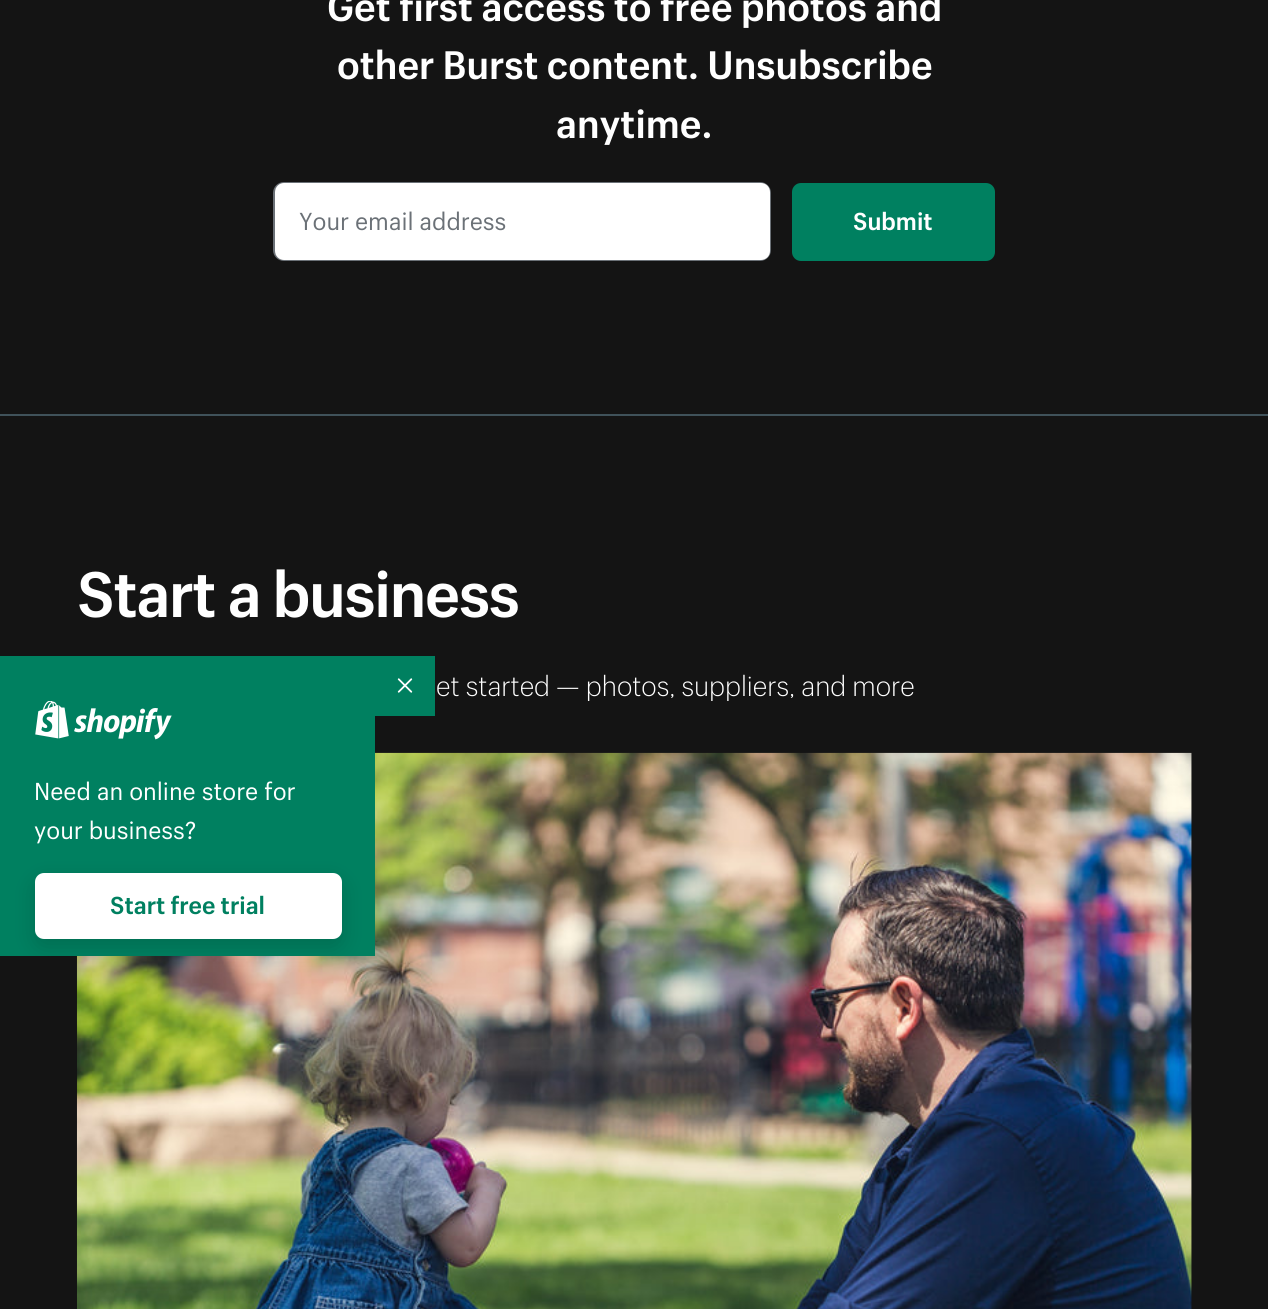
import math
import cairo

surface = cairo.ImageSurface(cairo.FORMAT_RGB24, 1268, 1309)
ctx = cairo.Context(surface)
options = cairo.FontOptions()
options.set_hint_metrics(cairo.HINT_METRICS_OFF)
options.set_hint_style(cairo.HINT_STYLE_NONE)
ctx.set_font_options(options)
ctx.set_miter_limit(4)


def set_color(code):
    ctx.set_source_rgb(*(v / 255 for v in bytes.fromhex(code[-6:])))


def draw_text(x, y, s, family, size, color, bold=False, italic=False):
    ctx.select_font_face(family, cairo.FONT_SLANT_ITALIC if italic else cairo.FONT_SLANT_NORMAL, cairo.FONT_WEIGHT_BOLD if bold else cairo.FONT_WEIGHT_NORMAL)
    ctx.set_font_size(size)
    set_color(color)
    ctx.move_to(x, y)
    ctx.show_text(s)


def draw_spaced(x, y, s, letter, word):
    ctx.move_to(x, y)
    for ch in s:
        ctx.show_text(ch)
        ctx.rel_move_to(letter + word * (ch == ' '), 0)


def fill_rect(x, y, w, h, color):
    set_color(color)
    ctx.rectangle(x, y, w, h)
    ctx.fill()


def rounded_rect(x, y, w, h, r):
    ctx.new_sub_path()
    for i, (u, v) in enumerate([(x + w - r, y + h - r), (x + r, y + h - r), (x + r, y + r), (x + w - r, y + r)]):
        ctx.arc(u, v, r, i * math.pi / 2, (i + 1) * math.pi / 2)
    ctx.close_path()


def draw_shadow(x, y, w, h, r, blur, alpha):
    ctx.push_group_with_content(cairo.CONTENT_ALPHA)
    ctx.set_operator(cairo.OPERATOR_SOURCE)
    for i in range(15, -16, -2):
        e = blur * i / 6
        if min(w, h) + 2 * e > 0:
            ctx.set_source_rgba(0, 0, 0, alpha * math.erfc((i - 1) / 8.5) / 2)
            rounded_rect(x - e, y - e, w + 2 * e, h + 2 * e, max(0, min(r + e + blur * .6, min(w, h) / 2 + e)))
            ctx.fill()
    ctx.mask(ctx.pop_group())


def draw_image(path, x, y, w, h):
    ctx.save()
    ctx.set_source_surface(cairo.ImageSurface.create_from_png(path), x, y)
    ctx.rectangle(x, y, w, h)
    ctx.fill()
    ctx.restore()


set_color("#141414")
ctx.paint()
draw_text(327, 21, "Get first access to free photos and", "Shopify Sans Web", 38.8, "#ffffff", bold=True)
draw_text(337, 79, "other Burst content. Unsubscribe", "Shopify Sans Web", 38.8, "#ffffff", bold=True)
draw_text(556, 138, "anytime.", "Shopify Sans Web", 38.8, "#ffffff", bold=True)
rounded_rect(274, 183, 496, 77, 10)
set_color("#6b7177")
ctx.stroke()
set_color("#ffffff")
rounded_rect(275, 183, 495, 77, 9)
ctx.fill()
draw_text(299, 230, "Your email address", "Shopify Sans Web", 24, "#6b7177")
set_color("#008060")
rounded_rect(792, 183, 203, 78, 9)
ctx.fill()
draw_text(853, 230, "Submit", "Shopify Sans Web", 24, "#ffffff", bold=True)
fill_rect(0, 414, 1268, 2, "#40525a")
ctx.set_font_size(62.75)
set_color("#ffffff")
draw_spaced(77, 617, "Start a business", -1.25, 0)
ctx.select_font_face("Shopify Sans Web Light")
ctx.set_font_size(27.6)
draw_spaced(436, 696, "et started — photos, suppliers, and more", 0, -0.25)
draw_image("assets/img1.png", 76, 752, 1116, 557)
fill_rect(375, 656, 60, 60, "#008060")
draw_image("assets/img2.png", 397, 678, 16, 15)
fill_rect(0, 656, 375, 300, "#008060")
draw_image("assets/img3.png", 35, 701, 137, 39)
draw_text(34, 800, "Need an online store for", "Shopify Sans Web", 24, "#ffffff")
draw_text(34, 839, "your business?", "Shopify Sans Web", 24, "#ffffff")
set_color("#000000")
draw_shadow(35, 881, 307, 66, 9, 11, 0.15)
set_color("#ffffff")
rounded_rect(35, 873, 307, 66, 9)
ctx.fill()
draw_text(110, 914, "Start free trial", "Shopify Sans Web", 24, "#008060", bold=True)
surface.write_to_png("output.png")
